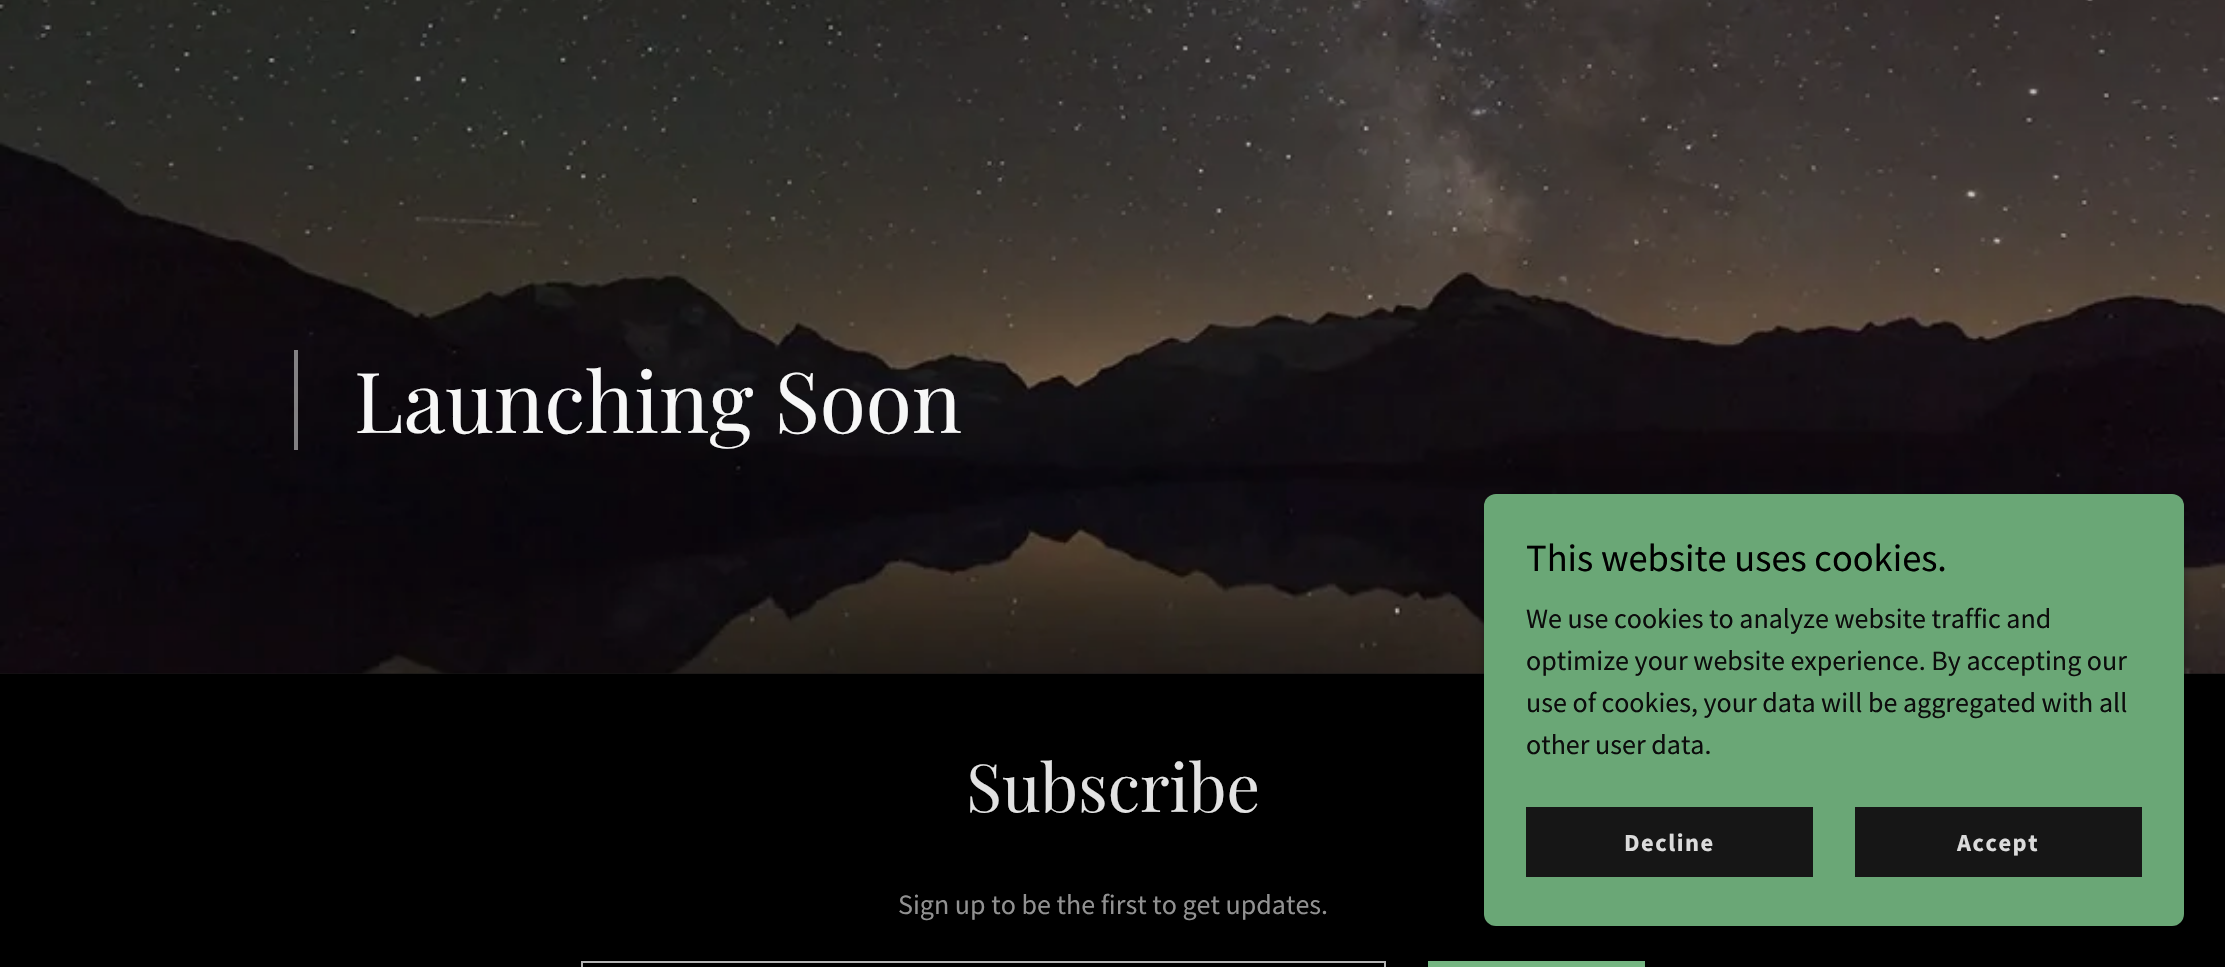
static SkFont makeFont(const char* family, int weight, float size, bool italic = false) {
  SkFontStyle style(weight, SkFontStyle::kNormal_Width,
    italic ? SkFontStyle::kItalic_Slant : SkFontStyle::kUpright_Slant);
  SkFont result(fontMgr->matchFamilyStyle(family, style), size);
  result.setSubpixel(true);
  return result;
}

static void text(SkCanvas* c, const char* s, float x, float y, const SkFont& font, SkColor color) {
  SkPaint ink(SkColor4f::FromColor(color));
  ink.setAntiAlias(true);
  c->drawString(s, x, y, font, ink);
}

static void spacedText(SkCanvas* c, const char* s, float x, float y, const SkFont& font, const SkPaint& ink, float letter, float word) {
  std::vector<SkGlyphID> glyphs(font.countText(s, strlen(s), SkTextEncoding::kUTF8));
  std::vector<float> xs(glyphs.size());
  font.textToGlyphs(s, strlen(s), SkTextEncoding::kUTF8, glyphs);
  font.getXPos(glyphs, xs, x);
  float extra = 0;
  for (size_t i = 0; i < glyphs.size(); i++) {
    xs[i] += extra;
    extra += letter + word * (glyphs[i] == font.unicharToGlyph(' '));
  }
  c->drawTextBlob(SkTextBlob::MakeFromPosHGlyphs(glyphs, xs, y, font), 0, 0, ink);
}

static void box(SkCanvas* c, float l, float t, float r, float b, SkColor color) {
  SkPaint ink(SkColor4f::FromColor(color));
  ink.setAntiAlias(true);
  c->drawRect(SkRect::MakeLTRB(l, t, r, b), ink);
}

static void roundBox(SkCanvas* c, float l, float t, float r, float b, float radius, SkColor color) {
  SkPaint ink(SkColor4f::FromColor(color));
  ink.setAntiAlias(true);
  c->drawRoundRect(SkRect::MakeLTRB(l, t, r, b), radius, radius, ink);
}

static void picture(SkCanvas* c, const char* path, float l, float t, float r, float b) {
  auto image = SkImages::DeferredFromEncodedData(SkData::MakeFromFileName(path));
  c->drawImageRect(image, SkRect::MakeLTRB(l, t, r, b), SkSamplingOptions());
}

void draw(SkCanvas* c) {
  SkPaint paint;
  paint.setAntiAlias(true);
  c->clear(0xff000000);
  box(c, 0, 673, 2225, 674, 0xff161616);
  picture(c, "img_01.png", 0, 0, 2225, 674);
  box(c, 294, 350, 298, 450, 0x80f7f7f7);
  SkFont face1 = makeFont("Playfair Display", 400, 84);
  text(c, "Launching Soon", 354, 433, face1, 0xfff7f7f7);
  SkFont face2 = makeFont("Playfair Display", 400, 66.5f);
  text(c, "Subscribe", 966, 812, face2, 0xffe2e2e2);
  SkFont face3 = makeFont("Source Sans Pro", 400, 28);
  text(c, "Sign up to be the first to get updates.", 898, 914, face3, 0xff919191);
  paint.setStyle(SkPaint::kStroke_Style);
  paint.setStrokeWidth(2);
  paint.setColor(0xffb3b3b3);
  c->drawRect(SkRect::MakeLTRB(582, 962, 1385, 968), paint);
  box(c, 1428, 961, 1645, 967, 0xff74b581);
  paint.setStyle(SkPaint::kFill_Style);
  paint.setColor(0x4d000000);
  paint.setMaskFilter(SkMaskFilter::MakeBlur(kNormal_SkBlurStyle, 5));
  c->drawRoundRect(SkRect::MakeLTRB(1484, 497, 2184, 929), 12, 12, paint);
  paint.setMaskFilter(nullptr);
  roundBox(c, 1484, 494, 2184, 926, 12, 0xff6aa776);
  SkFont face4 = makeFont("Source Sans Pro", 400, 38.5f);
  text(c, "This website uses cookies.", 1526, 571, face4, 0xff000000);
  text(c, "We use cookies to analyze website traffic and", 1526, 628, face3, 0xff0c0c0c);
  text(c, "optimize your website experience. By accepting our", 1526, 670, face3, 0xff0c0c0c);
  text(c, "use of cookies, your data will be aggregated with all", 1526, 712, face3, 0xff0c0c0c);
  text(c, "other user data.", 1526, 754, face3, 0xff0c0c0c);
  box(c, 1526, 807, 1813, 877, 0xff161616);
  SkFont face5 = makeFont("Source Sans Pro", 700, 24.5f);
  paint.setColor(0xffdbdbdb);
  spacedText(c, "Decline", 1624, 851, face5, paint, 1.5f, 0);
  box(c, 1855, 807, 2142, 877, 0xff161616);
  spacedText(c, "Accept", 1957, 851, face5, paint, 1.5f, 0);
}
